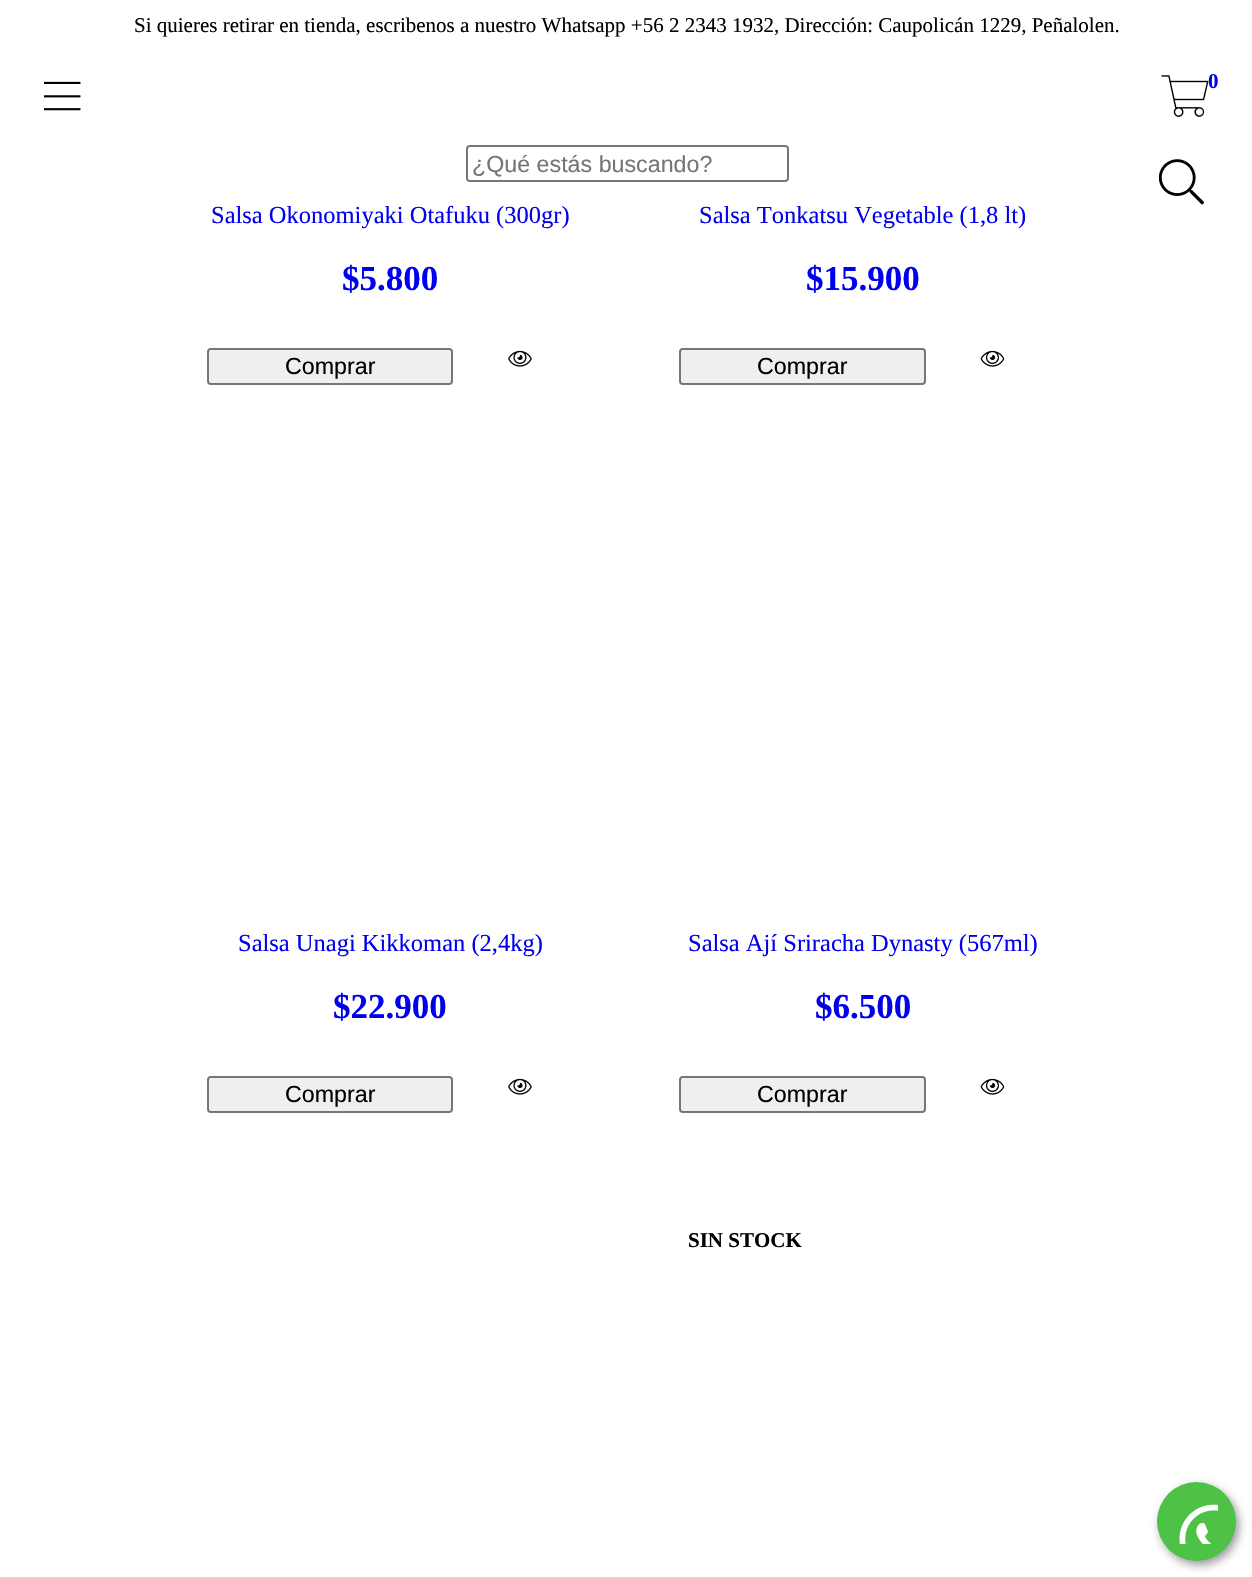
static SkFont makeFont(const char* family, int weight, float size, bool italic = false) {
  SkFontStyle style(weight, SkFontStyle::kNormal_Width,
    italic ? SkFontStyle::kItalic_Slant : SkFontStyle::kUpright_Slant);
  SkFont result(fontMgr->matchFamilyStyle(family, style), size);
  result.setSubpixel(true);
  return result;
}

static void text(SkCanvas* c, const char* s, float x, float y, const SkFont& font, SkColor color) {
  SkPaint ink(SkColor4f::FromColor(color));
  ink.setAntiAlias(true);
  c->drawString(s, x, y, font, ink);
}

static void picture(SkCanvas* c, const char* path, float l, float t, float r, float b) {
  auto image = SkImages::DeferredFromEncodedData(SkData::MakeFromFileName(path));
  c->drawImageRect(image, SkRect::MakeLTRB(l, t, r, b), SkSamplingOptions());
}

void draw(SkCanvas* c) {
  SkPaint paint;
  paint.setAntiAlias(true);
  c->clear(0xffffffff);
  SkFont face1 = makeFont("Liberation Serif", 400, 21);
  text(c, "Si quieres retirar en tienda, escribenos a nuestro Whatsapp +56 2 2343 1932, Dirección: Caupolicán 1229, Peñalolen.", 134, 32, face1, 0xff000000);
  picture(c, "img_01.png", 44, 81, 81, 111);
  picture(c, "img_02.png", 1161, 75, 1209, 117);
  SkFont face2 = makeFont("Liberation Serif", 700, 21);
  text(c, "0", 1208, 88, face2, 0xff0000ee);
  paint.setStyle(SkPaint::kStroke_Style);
  paint.setStrokeWidth(2);
  paint.setColor(0xff767676);
  c->drawRoundRect(SkRect::MakeLTRB(467, 146, 788, 181), 3, 3, paint);
  SkFont face3 = makeFont("Liberation Sans", 400, 23.25f);
  text(c, "¿Qué estás buscando?", 472, 172, face3, 0xff757575);
  picture(c, "img_03.png", 1159, 159, 1204, 205);
  SkFont face4 = makeFont("Liberation Serif", 400, 24.5f);
  text(c, "Salsa Okonomiyaki Otafuku (300gr)", 211, 223, face4, 0xff0000ee);
  SkFont face5 = makeFont("Liberation Serif", 700, 35);
  text(c, "$5.800", 342, 290, face5, 0xff0000ee);
  paint.setStyle(SkPaint::kFill_Style);
  paint.setColor(0xffefefef);
  c->drawRoundRect(SkRect::MakeLTRB(208, 349, 452, 384), 3, 3, paint);
  paint.setStyle(SkPaint::kStroke_Style);
  paint.setColor(0xff767676);
  c->drawRoundRect(SkRect::MakeLTRB(208, 349, 452, 384), 3, 3, paint);
  text(c, "Comprar", 285, 374, face3, 0xff000000);
  picture(c, "img_04.png", 508, 350, 532, 367);
  text(c, "Salsa Tonkatsu Vegetable (1,8 lt)", 699, 223, face4, 0xff0000ee);
  text(c, "$15.900", 806, 290, face5, 0xff0000ee);
  paint.setStyle(SkPaint::kFill_Style);
  paint.setColor(0xffefefef);
  c->drawRoundRect(SkRect::MakeLTRB(680, 349, 925, 384), 3, 3, paint);
  paint.setStyle(SkPaint::kStroke_Style);
  paint.setColor(0xff767676);
  c->drawRoundRect(SkRect::MakeLTRB(680, 349, 925, 384), 3, 3, paint);
  text(c, "Comprar", 757, 374, face3, 0xff000000);
  picture(c, "img_05.png", 980, 350, 1005, 367);
  text(c, "Salsa Unagi Kikkoman (2,4kg)", 238, 951, face4, 0xff0000ee);
  text(c, "$22.900", 333, 1018, face5, 0xff0000ee);
  paint.setStyle(SkPaint::kFill_Style);
  paint.setColor(0xffefefef);
  c->drawRoundRect(SkRect::MakeLTRB(208, 1077, 452, 1112), 3, 3, paint);
  paint.setStyle(SkPaint::kStroke_Style);
  paint.setColor(0xff767676);
  c->drawRoundRect(SkRect::MakeLTRB(208, 1077, 452, 1112), 3, 3, paint);
  text(c, "Comprar", 285, 1102, face3, 0xff000000);
  picture(c, "img_04.png", 508, 1078, 532, 1095);
  text(c, "Salsa Ají Sriracha Dynasty (567ml)", 688, 951, face4, 0xff0000ee);
  text(c, "$6.500", 815, 1018, face5, 0xff0000ee);
  paint.setStyle(SkPaint::kFill_Style);
  paint.setColor(0xffefefef);
  c->drawRoundRect(SkRect::MakeLTRB(680, 1077, 925, 1112), 3, 3, paint);
  paint.setStyle(SkPaint::kStroke_Style);
  paint.setColor(0xff767676);
  c->drawRoundRect(SkRect::MakeLTRB(680, 1077, 925, 1112), 3, 3, paint);
  text(c, "Comprar", 757, 1102, face3, 0xff000000);
  picture(c, "img_05.png", 980, 1078, 1005, 1095);
  text(c, "SIN STOCK", 688, 1247, face2, 0xff000000);
  paint.setStyle(SkPaint::kFill_Style);
  paint.setColor(0x66000000);
  paint.setMaskFilter(SkMaskFilter::MakeBlur(kNormal_SkBlurStyle, 5));
  c->drawRoundRect(SkRect::MakeLTRB(1160, 1486, 1239, 1565), 39.5f, 39.5f, paint);
  paint.setMaskFilter(nullptr);
  paint.setColor(0xff4dc247);
  c->drawCircle(1196.5f, 1521.5f, 39.5f, paint);
  picture(c, "img_06.png", 1179, 1504, 1218, 1544);
}
